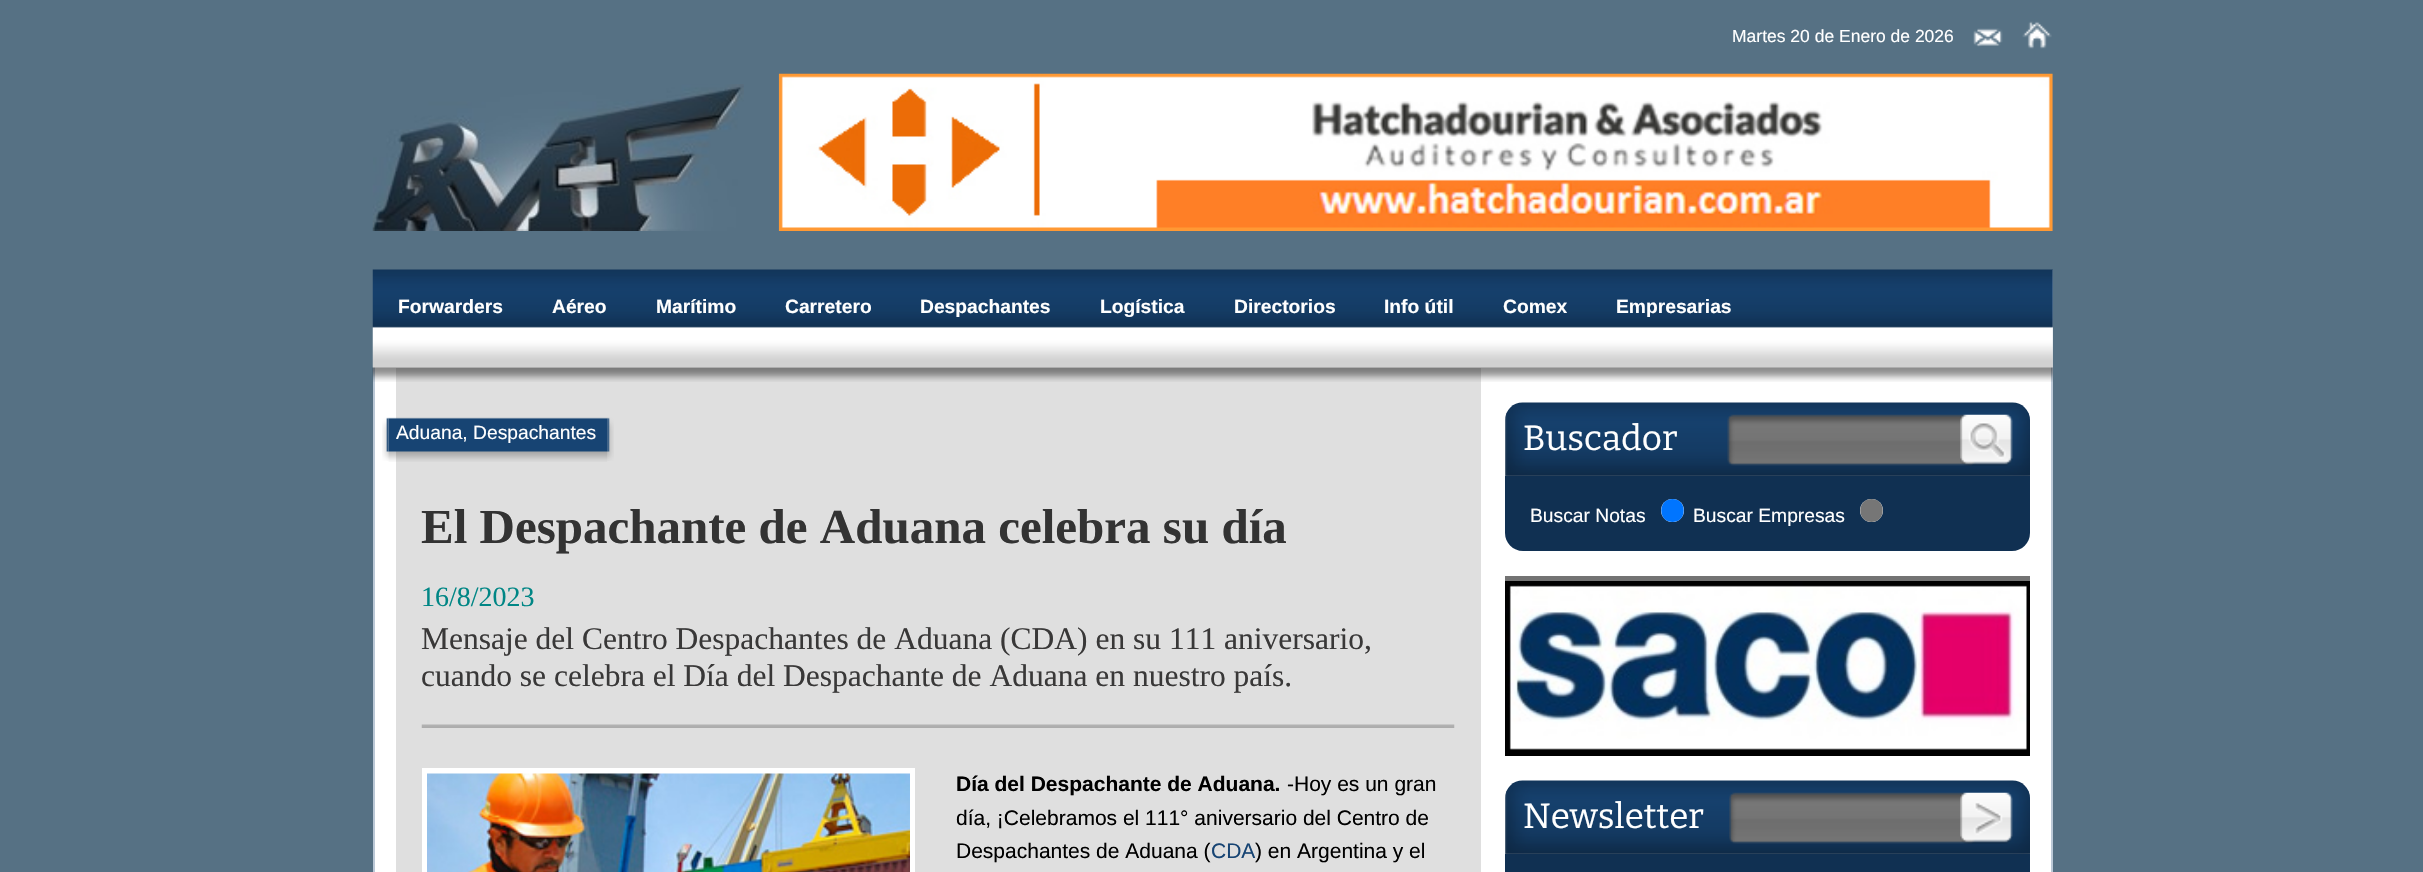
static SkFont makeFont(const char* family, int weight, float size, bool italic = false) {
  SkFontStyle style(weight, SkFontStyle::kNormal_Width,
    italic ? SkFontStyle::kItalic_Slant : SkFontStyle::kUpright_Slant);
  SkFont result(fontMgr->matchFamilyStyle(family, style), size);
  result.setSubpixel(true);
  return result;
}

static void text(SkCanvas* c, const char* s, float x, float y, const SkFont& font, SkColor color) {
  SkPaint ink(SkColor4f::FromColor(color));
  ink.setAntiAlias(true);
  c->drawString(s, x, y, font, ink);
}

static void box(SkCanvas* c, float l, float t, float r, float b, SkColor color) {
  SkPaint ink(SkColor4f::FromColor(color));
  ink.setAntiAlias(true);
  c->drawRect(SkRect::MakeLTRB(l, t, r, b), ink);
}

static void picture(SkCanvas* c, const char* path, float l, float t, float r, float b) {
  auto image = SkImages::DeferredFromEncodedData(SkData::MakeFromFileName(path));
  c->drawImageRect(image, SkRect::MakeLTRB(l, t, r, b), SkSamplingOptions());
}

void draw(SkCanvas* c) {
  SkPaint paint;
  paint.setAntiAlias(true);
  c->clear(0xff567184);
  SkFont face1 = makeFont("Liberation Sans", 400, 17.5f);
  text(c, "Martes 20 de Enero de 2026", 1732, 42, face1, 0xffffffff);
  picture(c, "img_01.png", 1973, 28, 2003, 47);
  picture(c, "img_02.png", 2022, 21, 2052, 49);
  picture(c, "img_03.png", 372, 84, 744, 231);
  picture(c, "img_04.png", 778, 73, 2053, 231);
  box(c, 375, 367, 2051, 872, 0xffffffff);
  box(c, 2051, 270, 2053, 872, 0xffbbc8d6);
  box(c, 373, 367, 375, 872, 0xffbbc8d6);
  box(c, 396, 368, 1481, 872, 0xffdfdfdf);
  picture(c, "img_05.png", 372, 269, 2053, 382);
  SkFont face2 = makeFont("Liberation Sans", 700, 19.25f);
  text(c, "Forwarders", 398, 313, face2, 0xffffffff);
  text(c, "Aéreo", 552, 313, face2, 0xffffffff);
  text(c, "Marítimo", 656, 313, face2, 0xffffffff);
  text(c, "Carretero", 785, 313, face2, 0xffffffff);
  text(c, "Despachantes", 920, 313, face2, 0xffffffff);
  text(c, "Logística", 1100, 313, face2, 0xffffffff);
  text(c, "Directorios", 1234, 313, face2, 0xffffffff);
  text(c, "Info útil", 1384, 313, face2, 0xffffffff);
  text(c, "Comex", 1503, 313, face2, 0xffffffff);
  text(c, "Empresarias", 1616, 313, face2, 0xffffffff);
  picture(c, "img_06.png", 382, 417, 389, 461);
  picture(c, "img_07.png", 388, 417, 608, 462);
  SkFont face3 = makeFont("Liberation Sans", 400, 19.25f);
  text(c, "Aduana, Despachantes", 396, 439, face3, 0xffffffff);
  picture(c, "img_08.png", 607, 417, 614, 461);
  SkFont face4 = makeFont("Liberation Serif", 700, 49);
  text(c, "El Despachante de Aduana celebra su día", 421, 543, face4, 0xff333333);
  SkFont face5 = makeFont("Liberation Serif", 400, 28);
  text(c, "16/8/2023", 421, 606, face5, 0xff008685);
  SkFont face6 = makeFont("Liberation Serif", 400, 31.5f);
  text(c, "Mensaje del Centro Despachantes de Aduana (CDA) en su 111 aniversario,", 421, 649, face6, 0xff393838);
  text(c, "cuando se celebra el Día del Despachante de Aduana en nuestro país.", 421, 686, face6, 0xff393838);
  picture(c, "img_09.png", 421, 724, 1455, 728);
  box(c, 422, 768, 915, 872, 0xffffffff);
  picture(c, "img_10.png", 427, 773, 910, 872);
  SkFont face7 = makeFont("Liberation Sans", 700, 21);
  text(c, "Día del Despachante de Aduana.", 956, 791, face7, 0xff000000);
  SkFont face8 = makeFont("Liberation Sans", 400, 21);
  text(c, "-Hoy es un gran", 1287, 791, face8, 0xff000000);
  text(c, "día, ¡Celebramos el 111° aniversario del Centro de", 956, 825, face8, 0xff000000);
  text(c, "Despachantes de Aduana (", 956, 858, face8, 0xff000000);
  text(c, "CDA", 1211, 858, face8, 0xff174473);
  text(c, ") en Argentina y el", 1255, 858, face8, 0xff000000);
  picture(c, "img_11.png", 1505, 402, 2030, 476);
  SkFont face9 = makeFont("Bitter", 400, 35);
  text(c, "Buscador", 1523, 450, face9, 0xffffffff);
  picture(c, "img_12.png", 1727, 414, 1960, 466);
  picture(c, "img_13.png", 1960, 414, 2013, 466);
  paint.setColor(0xff103052);
  c->drawPath(SkPathBuilder().moveTo(1505, 476).lineTo(2030, 476).lineTo(2030, 533).cubicTo(2030, 543, 2022, 551, 2012, 551).lineTo(1523, 551).cubicTo(1513, 551, 1505, 543, 1505, 533).close().detach(), paint);
  text(c, "Buscar Notas", 1530, 522, face3, 0xffffffff);
  paint.setColor(0xffffffff);
  c->drawCircle(1672.5f, 510.5f, 11.5f, paint);
  paint.setColor(0xff0075ff);
  c->drawPath(SkPathBuilder().moveTo(1672.5f, 499).cubicTo(1687.5f, 499, 1687.5f, 522, 1672.5f, 522).cubicTo(1657.5f, 522, 1657.5f, 499, 1672.5f, 499).close().detach(), paint);
  text(c, "Buscar Empresas", 1693, 522, face3, 0xffffffff);
  paint.setColor(0xffffffff);
  c->drawCircle(1871.5f, 510.5f, 11.5f, paint);
  paint.setColor(0xff767676);
  c->drawPath(SkPathBuilder().moveTo(1871.5f, 499).cubicTo(1886.5f, 499, 1886.5f, 522, 1871.5f, 522).cubicTo(1856.5f, 522, 1856.5f, 499, 1871.5f, 499).close().detach(), paint);
  box(c, 1505, 576, 2030, 581, 0xff737373);
  picture(c, "img_14.png", 1505, 581, 2030, 756);
  picture(c, "img_11.png", 1505, 780, 2030, 854);
  text(c, "Newsletter", 1523, 828, face9, 0xffffffff);
  picture(c, "img_15.png", 1729, 792, 1960, 844);
  picture(c, "img_16.png", 1960, 792, 2013, 844);
  box(c, 1505, 854, 2030, 872, 0xff103052);
}
